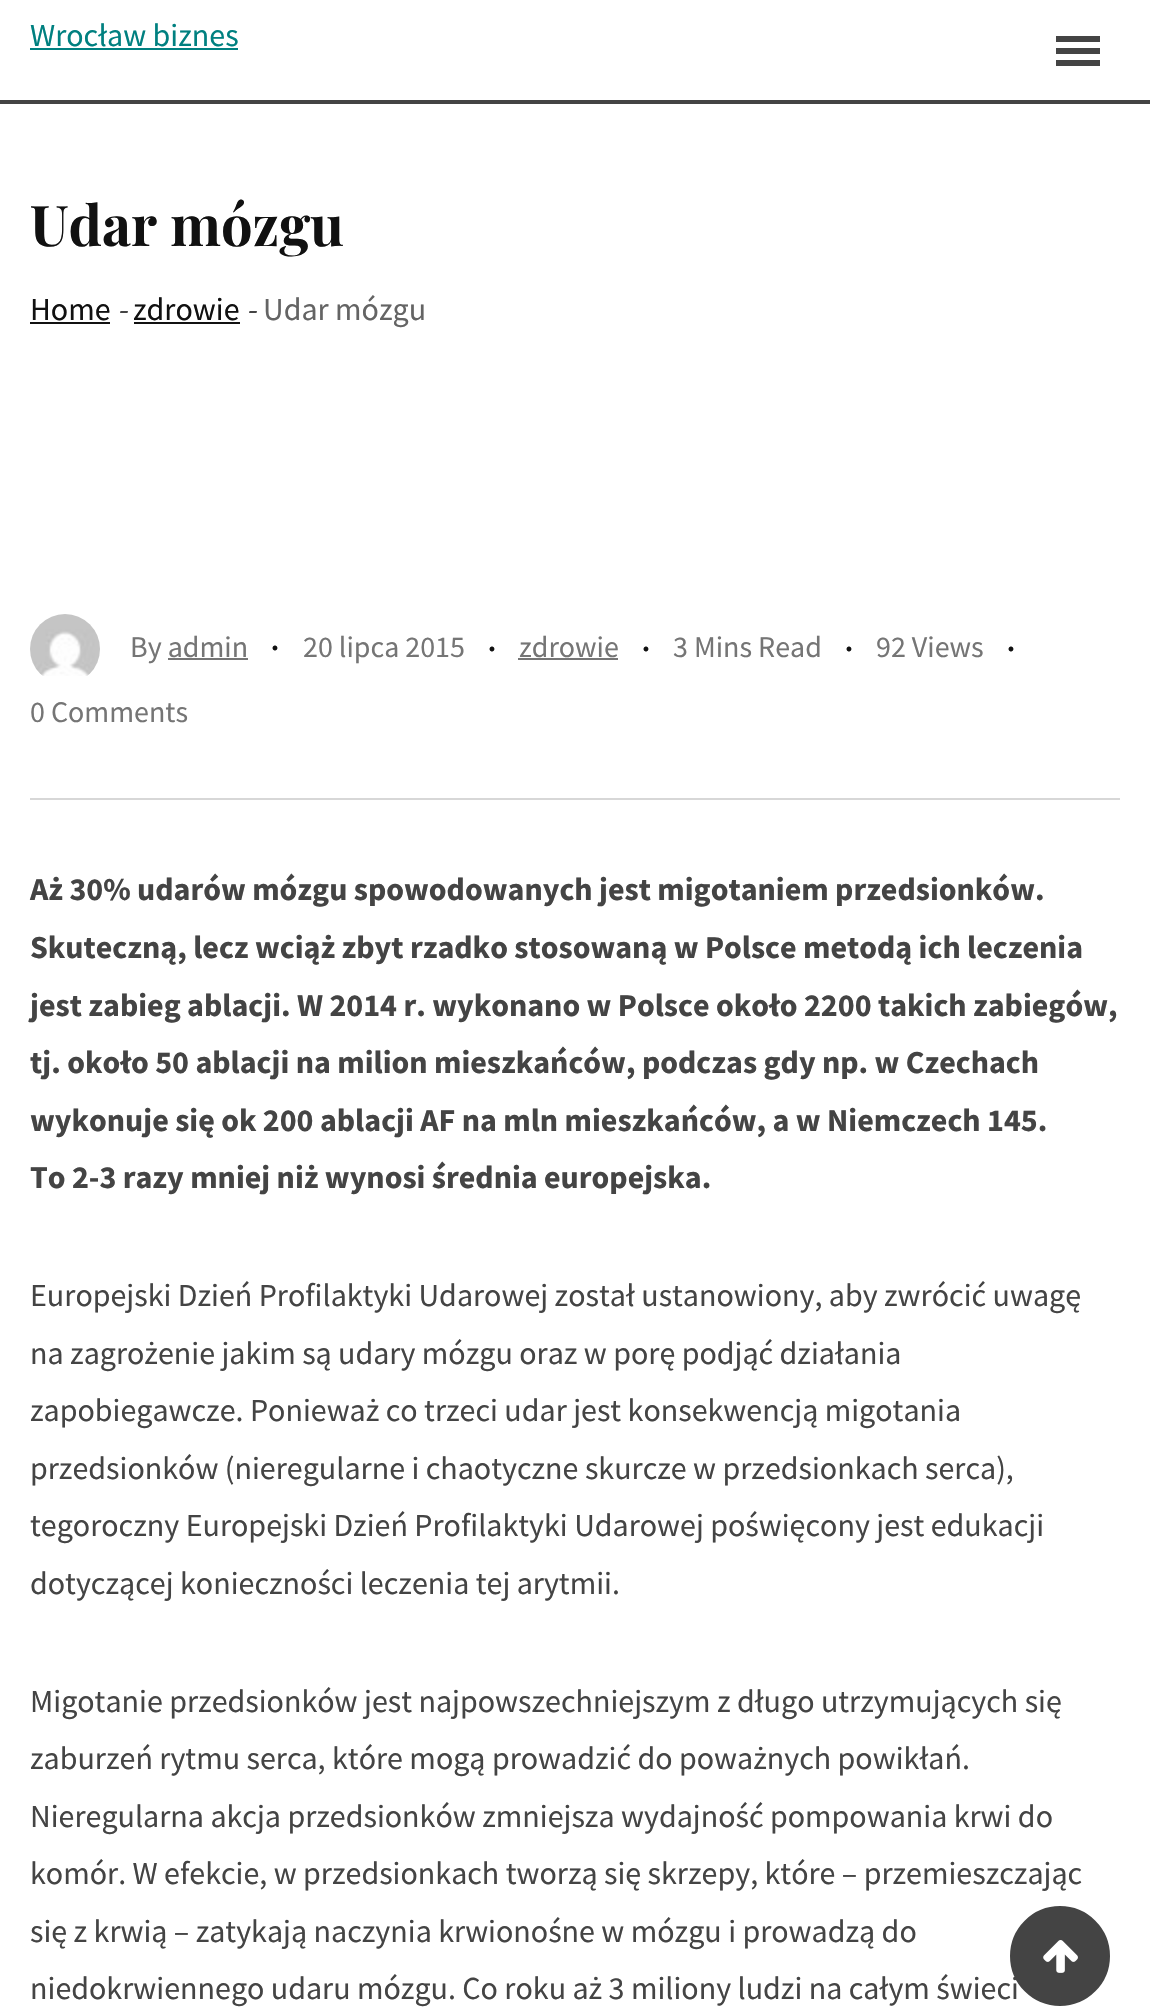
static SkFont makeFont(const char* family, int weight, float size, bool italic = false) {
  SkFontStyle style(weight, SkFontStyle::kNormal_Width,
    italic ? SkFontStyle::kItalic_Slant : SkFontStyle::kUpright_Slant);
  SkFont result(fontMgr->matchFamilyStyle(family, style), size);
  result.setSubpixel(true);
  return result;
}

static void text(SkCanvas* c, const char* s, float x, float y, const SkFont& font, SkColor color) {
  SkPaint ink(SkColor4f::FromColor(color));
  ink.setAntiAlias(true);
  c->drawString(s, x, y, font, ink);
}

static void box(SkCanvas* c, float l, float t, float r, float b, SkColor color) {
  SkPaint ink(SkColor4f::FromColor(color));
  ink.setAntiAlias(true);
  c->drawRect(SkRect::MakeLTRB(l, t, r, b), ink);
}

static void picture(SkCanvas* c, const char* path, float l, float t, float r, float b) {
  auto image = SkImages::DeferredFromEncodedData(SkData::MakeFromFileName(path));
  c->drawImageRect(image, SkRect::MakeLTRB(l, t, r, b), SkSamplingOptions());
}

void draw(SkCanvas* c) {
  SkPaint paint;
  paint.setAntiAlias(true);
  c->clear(0xffffffff);
  box(c, 0, 100, 1150, 104, 0xff444444);
  SkFont face1 = makeFont("Source Sans Pro", 400, 32);
  text(c, "Wrocław biznes", 30, 46, face1, 0xff008080);
  box(c, 30, 48, 238, 50, 0xff008080);
  box(c, 1056, 36, 1100, 42, 0xff444444);
  box(c, 1056, 48, 1100, 54, 0xff444444);
  box(c, 1056, 60, 1100, 66, 0xff444444);
  SkFont face2 = makeFont("Playfair Display", 700, 56);
  text(c, "Udar mózgu", 30, 246, face2, 0xff111111);
  text(c, "Home", 30, 320, face1, 0xff111111);
  box(c, 30, 322, 110, 324, 0xff111111);
  SkFont face3 = makeFont("Source Sans Pro", 400, 32, true);
  text(c, "-", 117, 320, face3, 0xff444444);
  text(c, "zdrowie", 133, 320, face1, 0xff111111);
  box(c, 134, 322, 240, 324, 0xff111111);
  text(c, "-", 246, 320, face3, 0xff444444);
  text(c, "Udar mózgu", 263, 320, face1, 0xff646464);
  picture(c, "img_01.png", 30, 614, 100, 676);
  SkFont face4 = makeFont("Source Sans Pro", 400, 30);
  text(c, "By admin", 130, 657, face4, 0xff757575);
  SkFont face5 = makeFont("Source Sans Pro", 400, 40);
  text(c, ".", 270, 650, face5, 0xff111111);
  box(c, 168, 658, 248, 660, 0xff757575);
  text(c, "20 lipca 2015", 303, 657, face4, 0xff757575);
  text(c, ".", 487, 651, face5, 0xff111111);
  text(c, "zdrowie", 519, 657, face4, 0xff757575);
  box(c, 518, 658, 618, 660, 0xff757575);
  text(c, ".", 641, 651, face5, 0xff111111);
  text(c, "3 Mins Read", 673, 657, face4, 0xff757575);
  text(c, ".", 844, 651, face5, 0xff111111);
  text(c, "92 Views", 876, 657, face4, 0xff757575);
  text(c, ".", 1006, 651, face5, 0xff111111);
  text(c, "0 Comments", 30, 722, face4, 0xff757575);
  box(c, 30, 798, 1120, 800, 0xffd7d7d7);
  SkFont face6 = makeFont("Source Sans Pro", 700, 32);
  text(c, "Aż 30% udarów mózgu spowodowanych jest migotaniem przedsionków.", 30, 900, face6, 0xff444444);
  text(c, "Skuteczną, lecz wciąż zbyt rzadko stosowaną w Polsce metodą ich leczenia", 30, 958, face6, 0xff444444);
  text(c, "jest zabieg ablacji. W 2014 r. wykonano w Polsce około 2200 takich zabiegów,", 30, 1016, face6, 0xff444444);
  text(c, "tj. około 50 ablacji na milion mieszkańców, podczas gdy np. w Czechach", 30, 1073, face6, 0xff444444);
  text(c, "wykonuje się ok 200 ablacji AF na mln mieszkańców, a w Niemczech 145.", 30, 1131, face6, 0xff444444);
  text(c, "To 2-3 razy mniej niż wynosi średnia europejska.", 30, 1188, face6, 0xff444444);
  text(c, "Europejski Dzień Profilaktyki Udarowej został ustanowiony, aby zwrócić uwagę", 30, 1306, face1, 0xff444444);
  text(c, "na zagrożenie jakim są udary mózgu oraz w porę podjąć działania", 30, 1364, face1, 0xff444444);
  text(c, "zapobiegawcze. Ponieważ co trzeci udar jest konsekwencją migotania", 30, 1421, face1, 0xff444444);
  text(c, "przedsionków (nieregularne i chaotyczne skurcze w przedsionkach serca),", 30, 1479, face1, 0xff444444);
  text(c, "tegoroczny Europejski Dzień Profilaktyki Udarowej poświęcony jest edukacji", 30, 1536, face1, 0xff444444);
  text(c, "dotyczącej konieczności leczenia tej arytmii.", 30, 1594, face1, 0xff444444);
  text(c, "Migotanie przedsionków jest najpowszechniejszym z długo utrzymujących się", 30, 1712, face1, 0xff444444);
  text(c, "zaburzeń rytmu serca, które mogą prowadzić do poważnych powikłań.", 30, 1769, face1, 0xff444444);
  text(c, "Nieregularna akcja przedsionków zmniejsza wydajność pompowania krwi do", 30, 1827, face1, 0xff444444);
  text(c, "komór. W efekcie, w przedsionkach tworzą się skrzepy, które – przemieszczając", 30, 1884, face1, 0xff444444);
  text(c, "się z krwią – zatykają naczynia krwionośne w mózgu i prowadzą do", 30, 1942, face1, 0xff444444);
  text(c, "niedokrwiennego udaru mózgu. Co roku aż 3 miliony ludzi na całym świeci", 30, 1999, face1, 0xff444444);
  paint.setColor(0xff444444);
  c->drawCircle(1060, 1956, 48, paint);
  paint.setStyle(SkPaint::kStroke_Style);
  paint.setStrokeWidth(4);
  c->drawCircle(1060, 1956, 48, paint);
  picture(c, "img_02.png", 1043, 1940, 1078, 1973);
}
